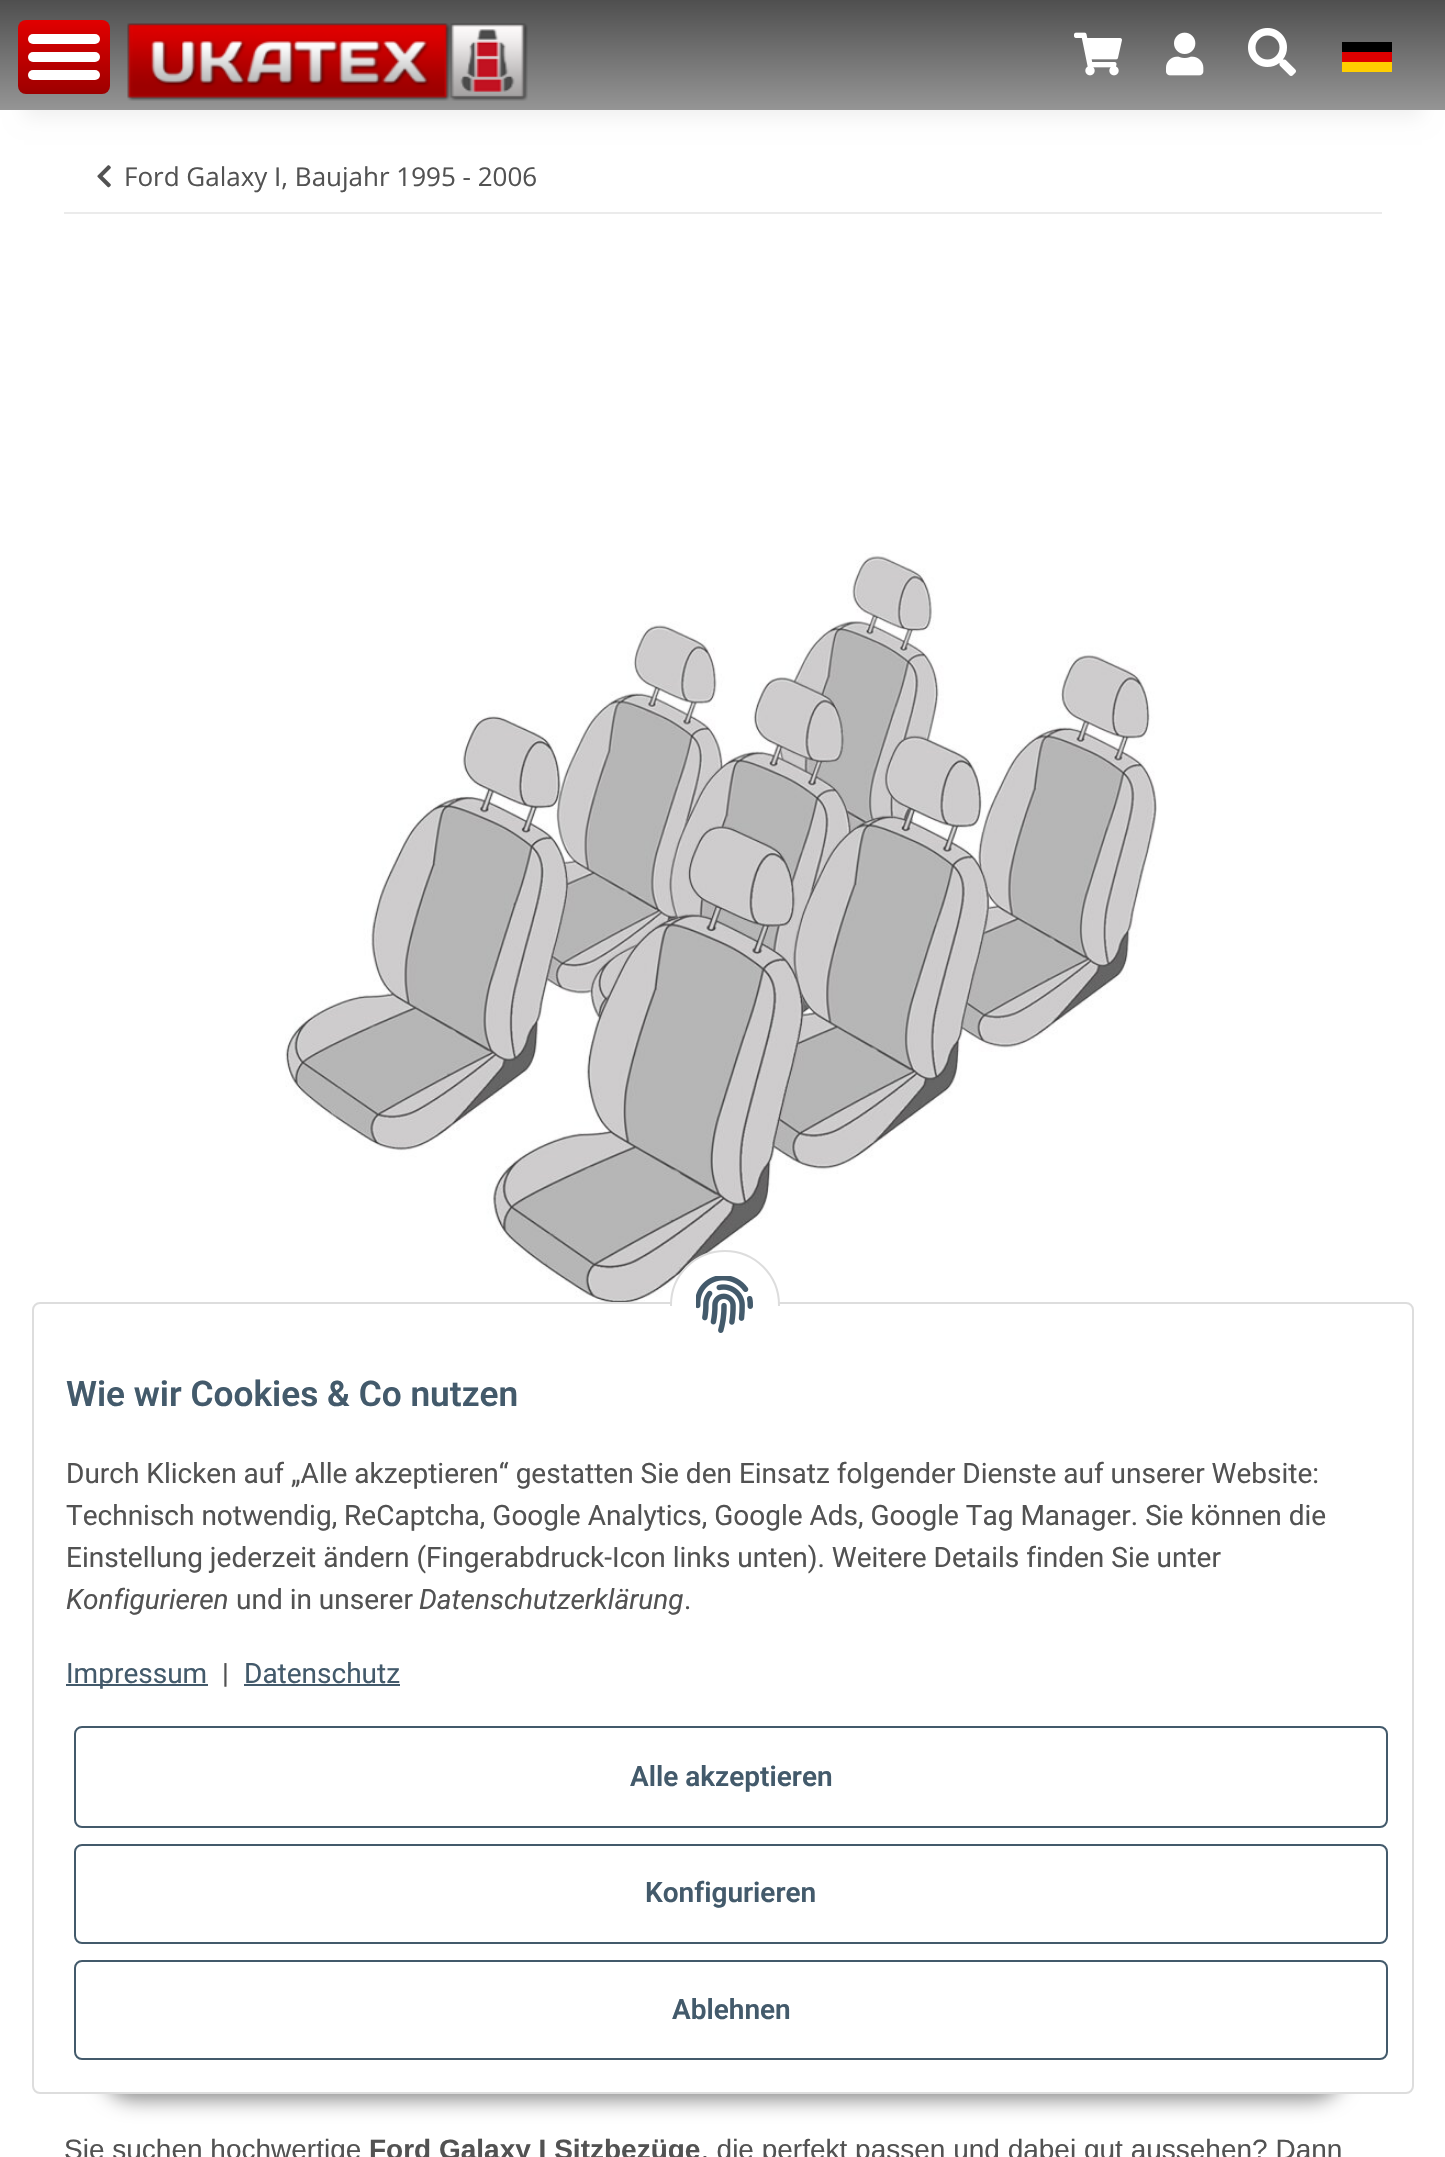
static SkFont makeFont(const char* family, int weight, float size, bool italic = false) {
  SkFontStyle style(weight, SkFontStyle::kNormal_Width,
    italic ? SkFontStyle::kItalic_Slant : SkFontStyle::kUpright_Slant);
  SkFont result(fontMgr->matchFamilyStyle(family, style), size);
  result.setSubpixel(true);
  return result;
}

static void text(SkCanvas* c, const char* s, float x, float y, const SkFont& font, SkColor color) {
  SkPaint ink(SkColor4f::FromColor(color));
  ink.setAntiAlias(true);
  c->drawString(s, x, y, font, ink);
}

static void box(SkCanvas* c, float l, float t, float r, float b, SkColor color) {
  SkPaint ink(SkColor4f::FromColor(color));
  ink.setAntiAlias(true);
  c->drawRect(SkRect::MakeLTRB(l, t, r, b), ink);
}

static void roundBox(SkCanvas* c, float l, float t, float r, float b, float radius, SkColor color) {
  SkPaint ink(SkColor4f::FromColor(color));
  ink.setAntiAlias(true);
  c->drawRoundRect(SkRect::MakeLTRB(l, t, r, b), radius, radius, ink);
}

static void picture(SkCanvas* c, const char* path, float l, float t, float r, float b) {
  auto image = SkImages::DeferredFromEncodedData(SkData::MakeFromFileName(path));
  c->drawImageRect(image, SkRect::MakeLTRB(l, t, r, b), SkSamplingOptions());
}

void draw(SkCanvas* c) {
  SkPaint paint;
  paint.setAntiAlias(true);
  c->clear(0xffffffff);
  paint.setColor(0x0f000000);
  paint.setMaskFilter(SkMaskFilter::MakeBlur(kNormal_SkBlurStyle, 9));
  c->drawRect(SkRect::MakeLTRB(24, 56, 1422, 118), paint);
  paint.setMaskFilter(nullptr);
  {
    const SkColor colors[] = {0xff4f4f4f, 0xff959595};
    const float stops[] = {0, 1};
    const SkPoint ends[] = {{723, 0}, {723, 110}};
    paint.setShader(SkGradientShader::MakeLinear(ends, colors, stops, 2, SkTileMode::kClamp));
    paint.setAlpha(255);
  }
  c->drawRect(SkRect::MakeLTRB(0, 0, 1445, 110), paint);
  {
    const SkColor colors[] = {0xffe10000, 0xff9d0000};
    const float stops[] = {0, 1};
    const SkPoint ends[] = {{64, 20}, {64, 94}};
    paint.setShader(SkGradientShader::MakeLinear(ends, colors, stops, 2, SkTileMode::kClamp));
    paint.setAlpha(255);
  }
  c->drawRoundRect(SkRect::MakeLTRB(18, 20, 110, 94), 8, 8, paint);
  roundBox(c, 28, 52, 100, 62, 5, 0xffffffff);
  roundBox(c, 28, 34, 100, 44, 5, 0xffffffff);
  roundBox(c, 28, 70, 100, 80, 5, 0xffffffff);
  picture(c, "img_01.png", 127, 23, 528, 101);
  picture(c, "img_02.png", 1074, 32, 1122, 76);
  picture(c, "img_03.png", 1166, 32, 1204, 76);
  picture(c, "img_04.png", 1248, 28, 1296, 76);
  box(c, 1342, 42, 1392, 52, 0xff000000);
  box(c, 1342, 52, 1392, 62, 0xffdd0000);
  box(c, 1342, 62, 1392, 72, 0xffffce00);
  box(c, 64, 212, 1382, 214, 0xffebebeb);
  picture(c, "img_05.png", 97, 165, 111, 188);
  SkFont face1 = makeFont("Open Sans", 400, 26);
  text(c, "Ford Galaxy I, Baujahr 1995 - 2006", 124, 186, face1, 0xff525252);
  picture(c, "img_06.png", 285, 553, 1157, 1302);
  SkFont face2 = makeFont("Liberation Sans", 400, 28);
  text(c, "Sie suchen hochwertige", 64, 2159, face2, 0xff525252);
  SkFont face3 = makeFont("Liberation Sans", 700, 28);
  text(c, "Ford Galaxy I Sitzbezüge", 369, 2159, face3, 0xff525252);
  text(c, ", die perfekt passen und dabei gut aussehen? Dann", 701, 2159, face2, 0xff525252);
  paint.setShader(nullptr);
  paint.setColor(0x73000000);
  paint.setMaskFilter(SkMaskFilter::MakeBlur(kNormal_SkBlurStyle, 10));
  c->drawRoundRect(SkRect::MakeLTRB(102, 2036, 1344, 2100), 32, 32, paint);
  paint.setMaskFilter(nullptr);
  paint.setColor(0xffffffff);
  c->drawRoundRect(SkRect::MakeLTRB(33, 1303, 1413, 2093), 7, 7, paint);
  paint.setStyle(SkPaint::kStroke_Style);
  paint.setStrokeWidth(2);
  paint.setColor(0xffdddddd);
  c->drawRoundRect(SkRect::MakeLTRB(33, 1303, 1413, 2093), 7, 7, paint);
  paint.setStyle(SkPaint::kFill_Style);
  paint.setColor(0xffffffff);
  c->drawCircle(725, 1305, 54, paint);
  paint.setStyle(SkPaint::kStroke_Style);
  paint.setColor(0xffdddddd);
  c->drawCircle(725, 1305, 54, paint);
  box(c, 670, 1306, 780, 1360, 0xffffffff);
  picture(c, "img_07.png", 696, 1276, 753, 1333);
  SkFont face4 = makeFont("Roboto", 600, 35.25f);
  text(c, "Wie wir Cookies & Co nutzen", 66, 1406, face4, 0xff435a6b);
  SkFont face5 = makeFont("Roboto", 400, 28);
  text(c, "Durch Klicken auf „Alle akzeptieren“ gestatten Sie den Einsatz folgender Dienste auf unserer Website:", 66, 1483, face5, 0xff525252);
  text(c, "Technisch notwendig, ReCaptcha, Google Analytics, Google Ads, Google Tag Manager. Sie können die", 66, 1525, face5, 0xff525252);
  text(c, "Einstellung jederzeit ändern (Fingerabdruck-Icon links unten). Weitere Details finden Sie unter", 66, 1567, face5, 0xff525252);
  SkFont face6 = makeFont("Roboto", 400, 28, true);
  text(c, "Konfigurieren", 66, 1609, face6, 0xff525252);
  text(c, "und in unserer", 236, 1609, face5, 0xff525252);
  text(c, "Datenschutzerklärung", 419, 1609, face6, 0xff525252);
  text(c, ".", 684, 1609, face5, 0xff525252);
  box(c, 66, 1684, 208, 1686, 0xff435a6b);
  text(c, "Impressum", 66, 1683, face5, 0xff435a6b);
  text(c, "|", 222, 1683, face5, 0xff525252);
  text(c, "Datenschutz", 244, 1683, face5, 0xff435a6b);
  box(c, 244, 1684, 400, 1686, 0xff435a6b);
  paint.setColor(0xff435a6b);
  c->drawRoundRect(SkRect::MakeLTRB(75, 1727, 1387, 1827), 7, 7, paint);
  SkFont face7 = makeFont("Roboto", 600, 28);
  text(c, "Alle akzeptieren", 630, 1786, face7, 0xff435a6b);
  c->drawRoundRect(SkRect::MakeLTRB(75, 1845, 1387, 1943), 7, 7, paint);
  text(c, "Konfigurieren", 645, 1902, face7, 0xff435a6b);
  c->drawRoundRect(SkRect::MakeLTRB(75, 1961, 1387, 2059), 7, 7, paint);
  text(c, "Ablehnen", 672, 2019, face7, 0xff435a6b);
}
